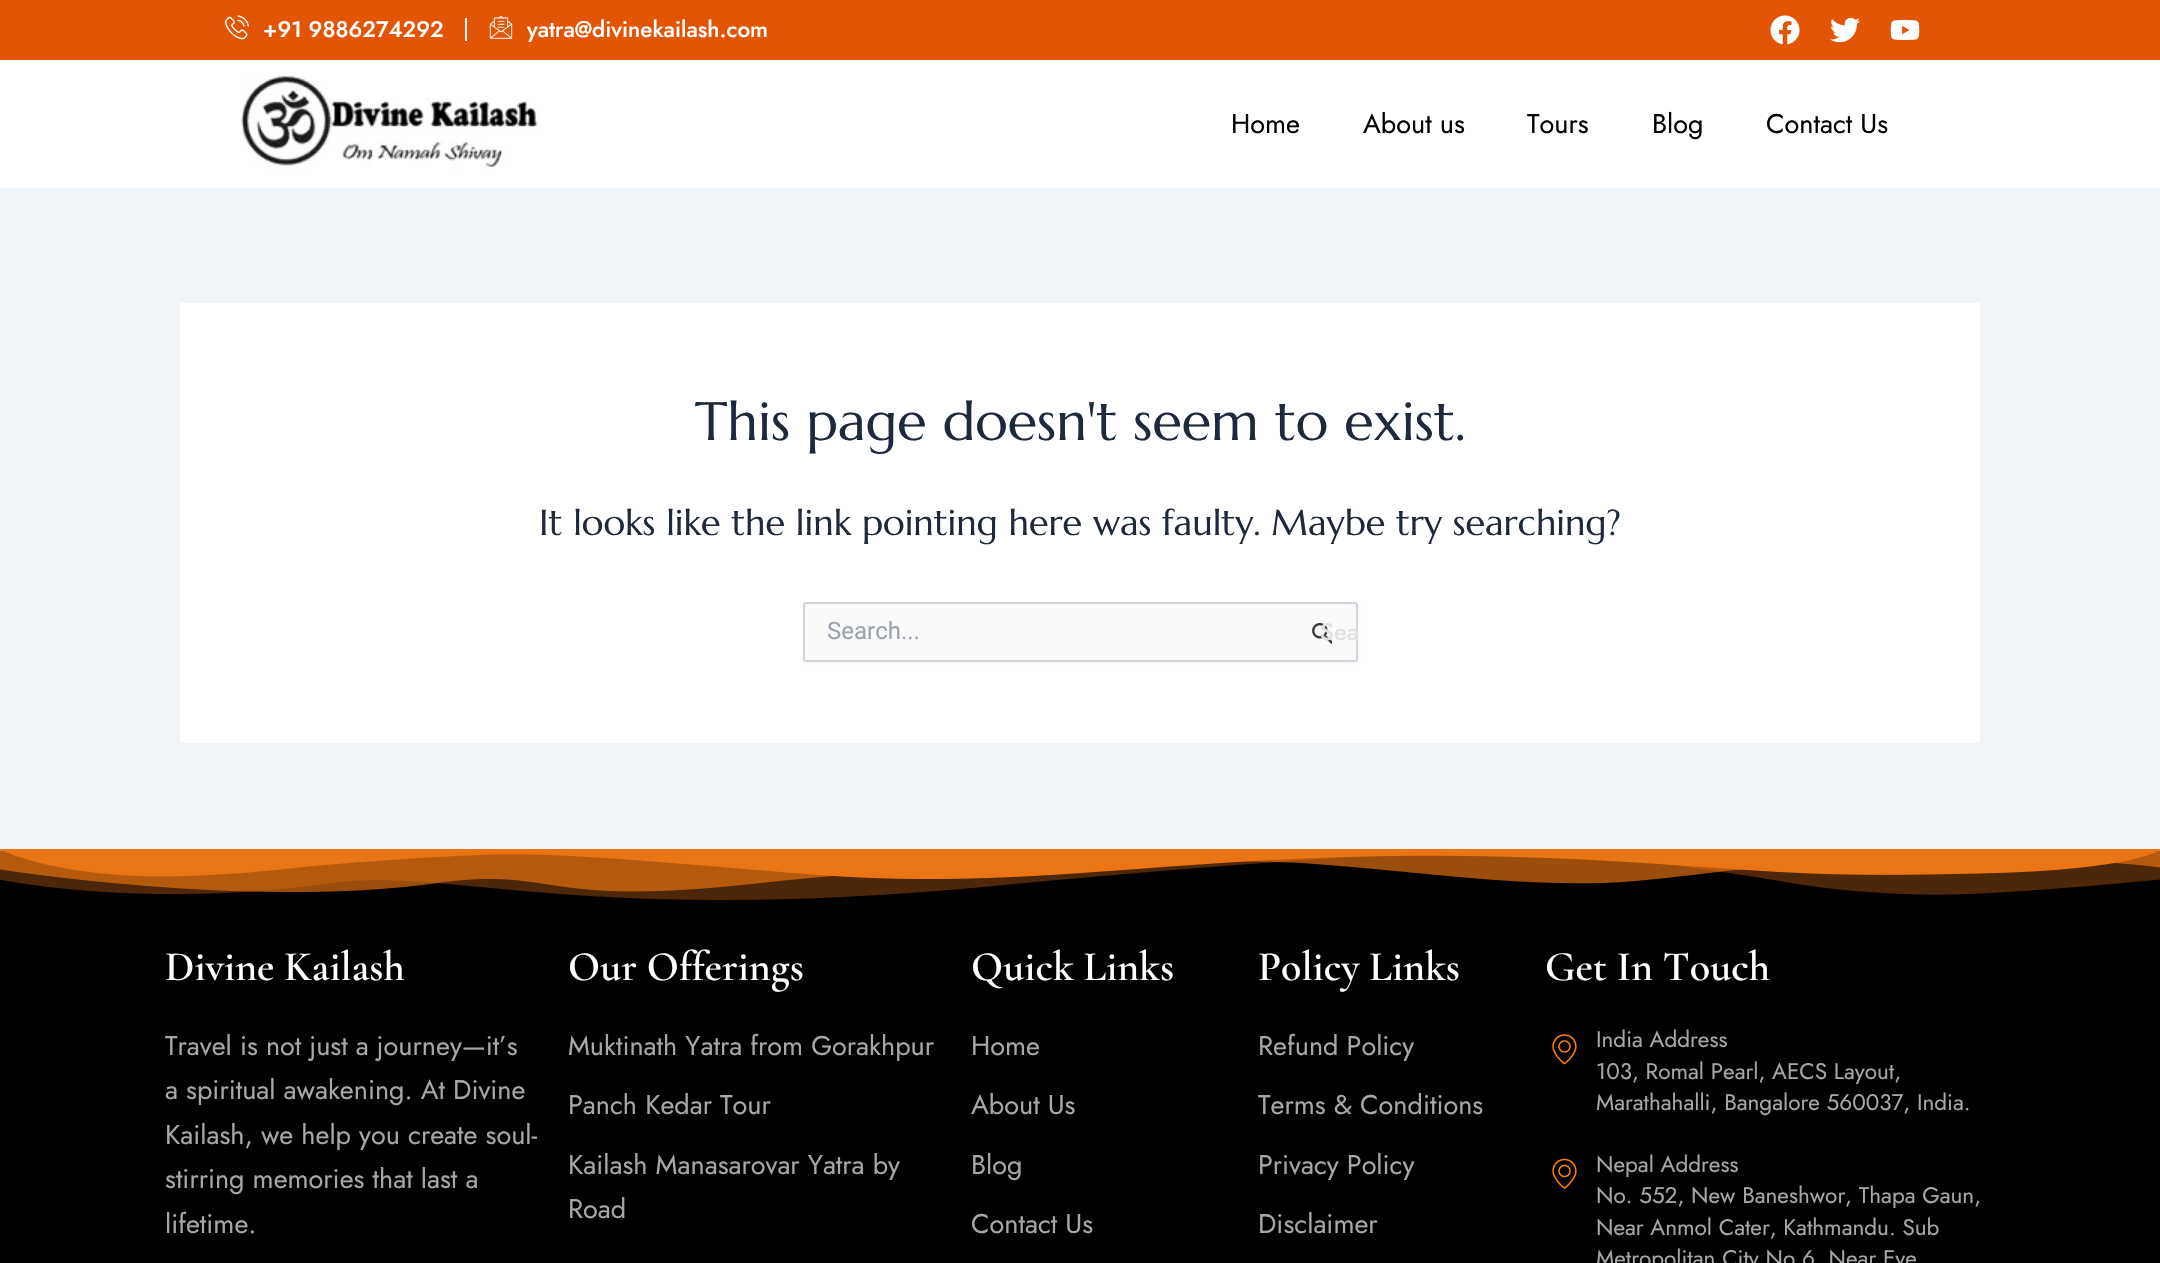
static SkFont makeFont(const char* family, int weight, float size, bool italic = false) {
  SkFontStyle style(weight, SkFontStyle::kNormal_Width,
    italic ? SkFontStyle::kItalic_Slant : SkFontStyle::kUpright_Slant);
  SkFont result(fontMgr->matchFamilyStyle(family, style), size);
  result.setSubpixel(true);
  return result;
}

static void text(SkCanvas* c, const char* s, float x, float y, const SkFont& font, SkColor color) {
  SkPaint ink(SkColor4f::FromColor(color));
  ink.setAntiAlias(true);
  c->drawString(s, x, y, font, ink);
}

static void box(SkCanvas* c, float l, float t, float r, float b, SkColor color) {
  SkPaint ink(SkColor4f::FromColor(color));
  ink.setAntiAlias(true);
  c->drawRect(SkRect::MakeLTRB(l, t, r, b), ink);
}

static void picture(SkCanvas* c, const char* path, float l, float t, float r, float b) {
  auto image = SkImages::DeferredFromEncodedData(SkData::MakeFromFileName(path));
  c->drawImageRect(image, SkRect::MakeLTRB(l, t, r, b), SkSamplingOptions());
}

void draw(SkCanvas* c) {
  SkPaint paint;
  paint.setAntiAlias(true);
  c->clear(0xfff0f5fa);
  box(c, 0, 0, 2160, 60, 0xffe25505);
  picture(c, "img_01.png", 225, 15, 249, 40);
  SkFont face1 = makeFont("Jost", 500, 22.5f);
  text(c, "+91 9886274292", 263, 37, face1, 0xffffffff);
  box(c, 465, 18, 467, 41, 0xffffffff);
  picture(c, "img_02.png", 489, 15, 513, 39);
  text(c, "yatra@divinekailash.com", 527, 37, face1, 0xffffffff);
  picture(c, "img_03.png", 1770, 15, 1800, 45);
  picture(c, "img_04.png", 1830, 17, 1860, 43);
  picture(c, "img_05.png", 1890, 20, 1920, 40);
  box(c, 0, 60, 2160, 188, 0xffffffff);
  picture(c, "img_06.png", 240, 75, 540, 169);
  SkFont face2 = makeFont("Jost", 400, 27);
  text(c, "Home", 1231, 133, face2, 0xff000000);
  text(c, "About us", 1363, 133, face2, 0xff000000);
  text(c, "Tours", 1527, 133, face2, 0xff000000);
  text(c, "Blog", 1652, 133, face2, 0xff000000);
  text(c, "Contact Us", 1766, 133, face2, 0xff000000);
  box(c, 180, 303, 1980, 743, 0xffffffff);
  SkFont face3 = makeFont("Marcellus", 400, 54);
  text(c, "This page doesn't seem to exist.", 695, 440, face3, 0xff1e293b);
  SkFont face4 = makeFont("Marcellus", 400, 36);
  text(c, "It looks like the link pointing here was faulty. Maybe try searching?", 539, 535, face4, 0xff1e293b);
  paint.setColor(0x0d000000);
  paint.setMaskFilter(SkMaskFilter::MakeBlur(kNormal_SkBlurStyle, 1.5f));
  c->drawRoundRect(SkRect::MakeLTRB(803, 603, 1358, 663), 3, 3, paint);
  paint.setMaskFilter(nullptr);
  paint.setColor(0xfffafafa);
  c->drawRoundRect(SkRect::MakeLTRB(804, 603, 1357, 661), 2, 2, paint);
  paint.setStyle(SkPaint::kStroke_Style);
  paint.setStrokeWidth(2);
  paint.setColor(0xffd1d5db);
  c->drawRoundRect(SkRect::MakeLTRB(804, 603, 1357, 661), 2, 2, paint);
  SkFont face5 = makeFont("Roboto", 400, 24);
  text(c, "Search...", 827, 639, face5, 0xff9ca3af);
  picture(c, "img_07.png", 1312, 623, 1332, 644);
  SkFont face6 = makeFont("Jost", 500, 24);
  text(c, "Sea", 1320, 640, face6, 0xffe1e1e2);
  box(c, 0, 851, 2160, 1263, 0xff000000);
  picture(c, "img_08.png", 0, 849, 2160, 900);
  SkFont face7 = makeFont("Cormorant Garamond", 600, 42);
  text(c, "Divine Kailash", 165, 980, face7, 0xffffffff);
  text(c, "Travel is not just a journey—it’s", 165, 1055, face2, 0xffa7a7a7);
  text(c, "a spiritual awakening. At Divine", 165, 1099, face2, 0xffa7a7a7);
  text(c, "Kailash, we help you create soul-", 165, 1144, face2, 0xffa7a7a7);
  text(c, "stirring memories that last a", 165, 1188, face2, 0xffa7a7a7);
  text(c, "lifetime.", 165, 1233, face2, 0xffa7a7a7);
  text(c, "Our Offerings", 568, 980, face7, 0xffffffff);
  text(c, "Muktinath Yatra from Gorakhpur", 568, 1055, face2, 0xffa7a7a7);
  text(c, "Panch Kedar Tour", 568, 1114, face2, 0xffa7a7a7);
  text(c, "Kailash Manasarovar Yatra by", 568, 1174, face2, 0xffa7a7a7);
  text(c, "Road", 568, 1218, face2, 0xffa7a7a7);
  text(c, "Quick Links", 971, 980, face7, 0xffffffff);
  text(c, "Home", 971, 1055, face2, 0xffa7a7a7);
  text(c, "About Us", 971, 1114, face2, 0xffa7a7a7);
  text(c, "Blog", 971, 1174, face2, 0xffa7a7a7);
  text(c, "Contact Us", 971, 1233, face2, 0xffa7a7a7);
  text(c, "Policy Links", 1258, 980, face7, 0xffffffff);
  text(c, "Refund Policy", 1258, 1055, face2, 0xffa7a7a7);
  text(c, "Terms & Conditions", 1258, 1114, face2, 0xffa7a7a7);
  text(c, "Privacy Policy", 1258, 1174, face2, 0xffa7a7a7);
  text(c, "Disclaimer", 1258, 1233, face2, 0xffa7a7a7);
  text(c, "Get In Touch", 1545, 980, face7, 0xffffffff);
  picture(c, "img_09.png", 1552, 1034, 1577, 1065);
  SkFont face8 = makeFont("Jost", 400, 22.5f);
  text(c, "India Address", 1596, 1047, face8, 0xffa7a7a7);
  text(c, "103, Romal Pearl, AECS Layout,", 1596, 1079, face8, 0xffa7a7a7);
  text(c, "Marathahalli, Bangalore 560037, India.", 1596, 1110, face8, 0xffa7a7a7);
  picture(c, "img_10.png", 1552, 1158, 1577, 1189);
  text(c, "Nepal Address", 1596, 1172, face8, 0xffa7a7a7);
  text(c, "No. 552, New Baneshwor, Thapa Gaun,", 1596, 1203, face8, 0xffa7a7a7);
  text(c, "Near Anmol Cater, Kathmandu. Sub", 1596, 1235, face8, 0xffa7a7a7);
  text(c, "Metropolitan City No 6, Near Eye", 1596, 1266, face8, 0xffa7a7a7);
}
